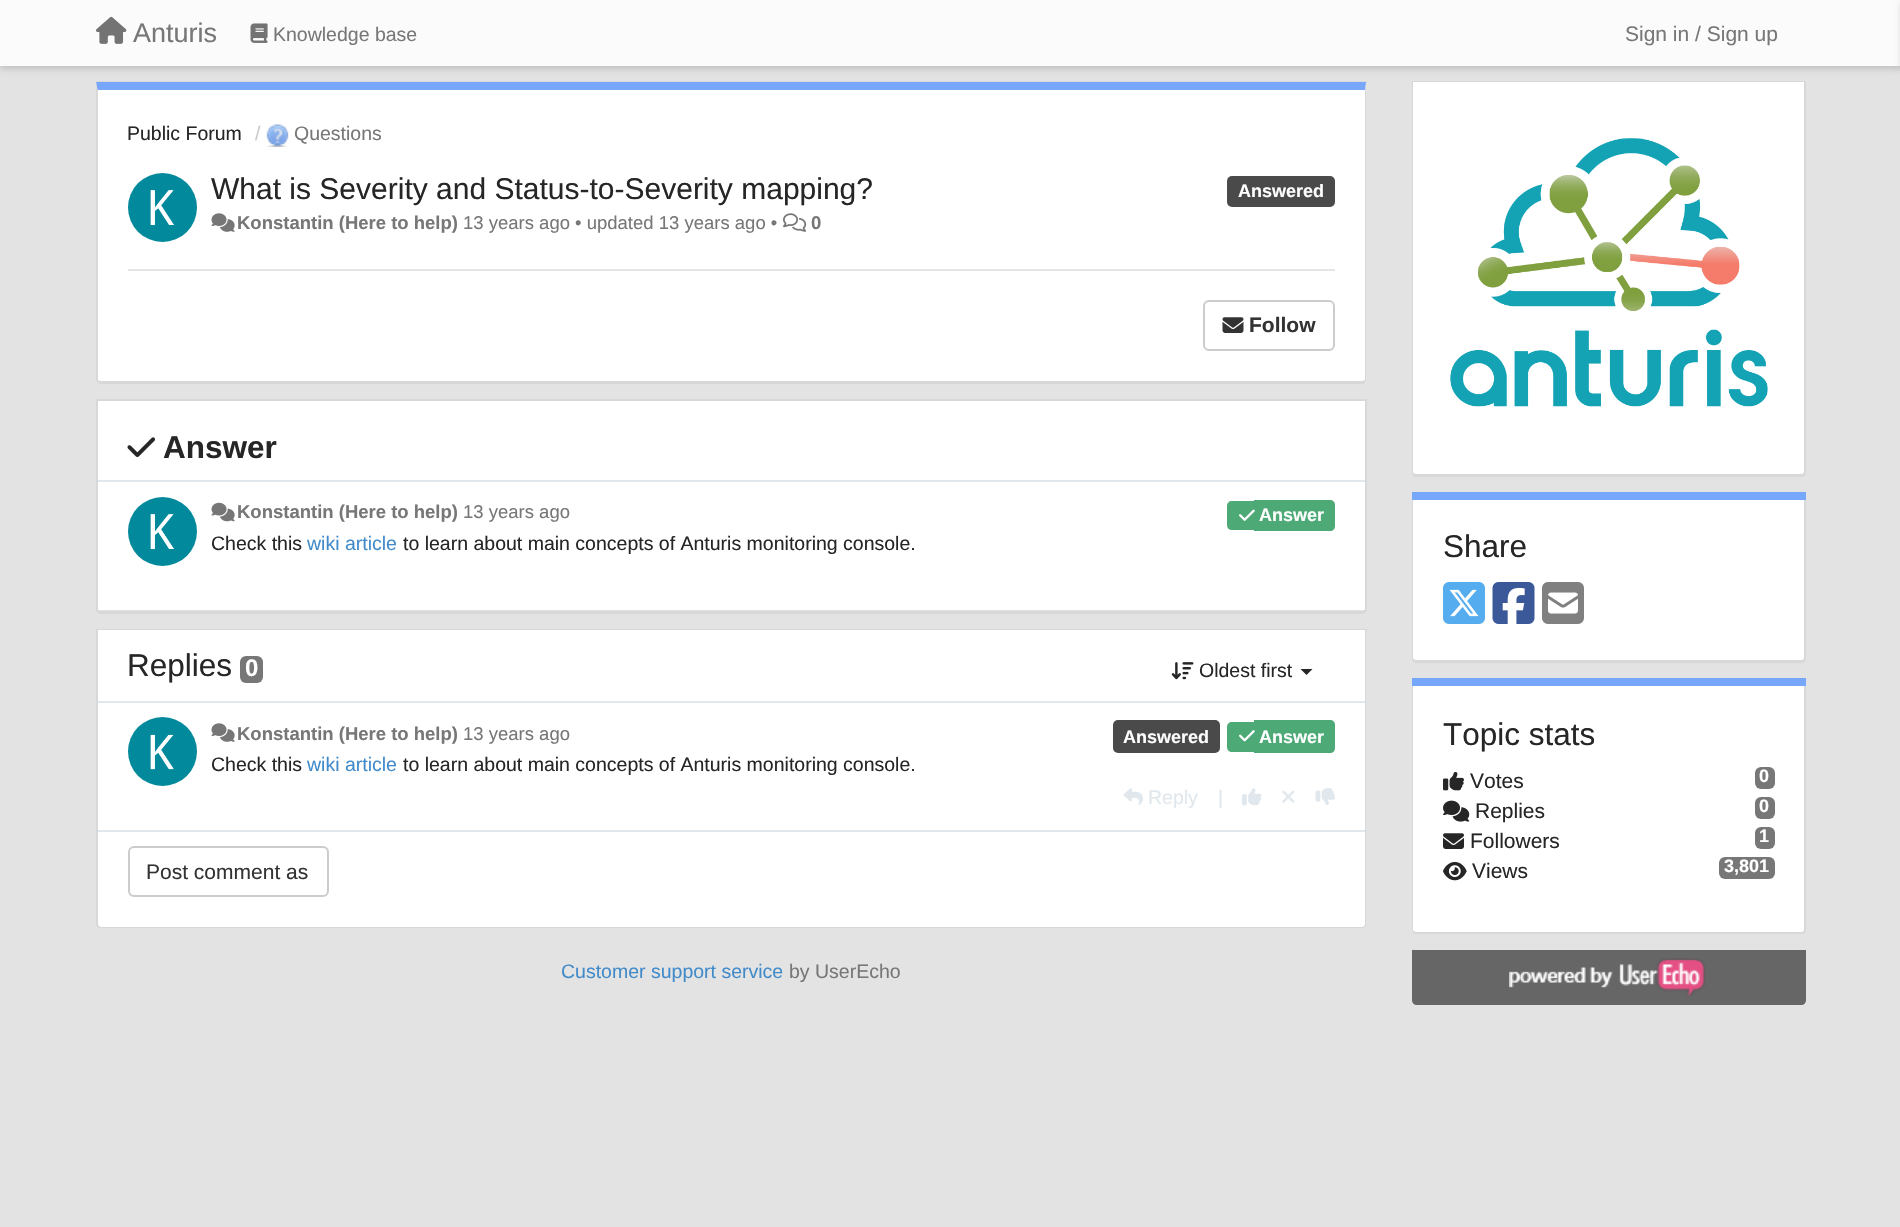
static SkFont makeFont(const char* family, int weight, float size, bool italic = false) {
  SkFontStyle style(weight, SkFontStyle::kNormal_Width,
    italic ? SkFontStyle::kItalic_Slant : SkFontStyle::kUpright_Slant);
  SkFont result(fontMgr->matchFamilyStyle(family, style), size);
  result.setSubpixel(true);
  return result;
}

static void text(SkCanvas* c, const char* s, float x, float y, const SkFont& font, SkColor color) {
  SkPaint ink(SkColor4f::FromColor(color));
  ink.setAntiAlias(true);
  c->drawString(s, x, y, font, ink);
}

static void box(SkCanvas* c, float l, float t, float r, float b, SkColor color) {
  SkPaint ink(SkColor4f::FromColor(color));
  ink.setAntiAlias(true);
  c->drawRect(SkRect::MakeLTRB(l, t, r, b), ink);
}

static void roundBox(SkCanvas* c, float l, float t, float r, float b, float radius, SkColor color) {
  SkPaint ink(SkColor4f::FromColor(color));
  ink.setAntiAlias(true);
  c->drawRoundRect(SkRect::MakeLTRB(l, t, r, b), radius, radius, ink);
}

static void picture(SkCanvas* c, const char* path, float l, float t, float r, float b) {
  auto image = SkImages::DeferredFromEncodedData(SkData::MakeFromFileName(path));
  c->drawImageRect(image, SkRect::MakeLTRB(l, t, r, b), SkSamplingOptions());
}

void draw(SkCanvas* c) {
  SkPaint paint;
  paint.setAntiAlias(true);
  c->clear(0xffe3e3e3);
  paint.setColor(0x26000000);
  paint.setMaskFilter(SkMaskFilter::MakeBlur(kNormal_SkBlurStyle, 3));
  c->drawRect(SkRect::MakeLTRB(0, 3, 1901, 69), paint);
  paint.setMaskFilter(nullptr);
  box(c, 0, 0, 1900, 66, 0xfffbfbfb);
  picture(c, "img_01.png", 96, 16, 127, 44);
  SkFont face1 = makeFont("Liberation Sans", 400, 27);
  text(c, "Anturis", 133, 42, face1, 0xff777777);
  picture(c, "img_02.png", 250, 23, 268, 43);
  SkFont face2 = makeFont("Liberation Sans", 400, 19.5f);
  text(c, "Knowledge base", 273, 41, face2, 0xff777777);
  SkFont face3 = makeFont("Liberation Sans", 400, 21);
  text(c, "Sign in / Sign up", 1625, 41, face3, 0xff777777);
  paint.setMaskFilter(SkMaskFilter::MakeBlur(kNormal_SkBlurStyle, 3));
  c->drawRect(SkRect::MakeLTRB(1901, 3, 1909, 69), paint);
  paint.setMaskFilter(nullptr);
  box(c, 96, 81, 1367, 83, 0xffd8d8d8);
  paint.setColor(0xffffffff);
  c->drawPath(SkPathBuilder().moveTo(98, 90).lineTo(1365, 90).lineTo(1365, 380).cubicTo(1365, 380, 1364, 381, 1362, 381).lineTo(100, 381).cubicTo(99, 381, 98, 380, 98, 380).close().detach(), paint);
  paint.setColor(0xff76a7fa);
  c->drawPath(SkPathBuilder().moveTo(98, 90).lineTo(98, 92).lineTo(96, 82).lineTo(1366, 82).lineTo(1365, 90).close().detach(), paint);
  paint.setColor(0xffd8d8d8);
  c->drawPath(SkPathBuilder().moveTo(1366, 85).lineTo(1366, 380).lineTo(1365, 382).lineTo(1365, 380).lineTo(1365, 90).close().detach(), paint);
  c->drawPath(SkPathBuilder().moveTo(100, 384).lineTo(1362, 384).cubicTo(1363, 384, 1365, 383, 1365, 382).lineTo(1365, 380).lineTo(1362, 381).lineTo(100, 381).lineTo(98, 380).lineTo(97, 382).cubicTo(98, 383, 99, 384, 100, 384).close().detach(), paint);
  c->drawPath(SkPathBuilder().moveTo(96, 82).lineTo(96, 380).lineTo(97, 382).lineTo(98, 380).lineTo(98, 92).close().detach(), paint);
  text(c, "Public Forum", 127, 140, face2, 0xff262626);
  text(c, "/", 255, 140, face2, 0xffcccccc);
  picture(c, "img_03.png", 266, 124, 289, 147);
  text(c, "Questions", 294, 140, face2, 0xff777777);
  paint.setColor(0xff03899c);
  c->drawCircle(162.5f, 207.5f, 34.5f, paint);
  picture(c, "img_04.png", 150, 190, 174, 225);
  SkFont face4 = makeFont("Liberation Sans", 400, 30);
  text(c, "What is Severity and Status-to-Severity mapping?", 211, 199, face4, 0xff262626);
  roundBox(c, 1227, 176, 1335, 207, 5, 0xff4a4a4a);
  SkFont face5 = makeFont("Liberation Sans", 700, 18);
  text(c, "Answered", 1238, 197, face5, 0xffffffff);
  picture(c, "img_05.png", 211, 213, 235, 232);
  SkFont face6 = makeFont("Liberation Sans", 700, 18.5f);
  text(c, "Konstantin (Here to help)", 237, 229, face6, 0xff777777);
  SkFont face7 = makeFont("Liberation Sans", 400, 18.5f);
  text(c, "13 years ago • updated 13 years ago •", 463, 229, face7, 0xff777777);
  picture(c, "img_06.png", 783, 213, 807, 232);
  text(c, "0", 811, 229, face6, 0xff777777);
  box(c, 128, 269, 1335, 271, 0xffe5e5e5);
  paint.setStyle(SkPaint::kStroke_Style);
  paint.setStrokeWidth(2);
  paint.setColor(0xffcccccc);
  c->drawRoundRect(SkRect::MakeLTRB(1204, 301, 1334, 350), 5, 5, paint);
  picture(c, "img_07.png", 1222, 317, 1244, 333);
  SkFont face8 = makeFont("Liberation Sans", 700, 21);
  text(c, "Follow", 1249, 332, face8, 0xff333333);
  paint.setStyle(SkPaint::kFill_Style);
  paint.setColor(0xffffffff);
  c->drawPath(SkPathBuilder().moveTo(98, 400).lineTo(1365, 400).lineTo(1365, 609).cubicTo(1365, 610, 1364, 610, 1362, 610).lineTo(100, 610).cubicTo(99, 610, 98, 610, 98, 609).close().detach(), paint);
  paint.setStyle(SkPaint::kStroke_Style);
  paint.setColor(0xffd8d8d8);
  c->drawPath(SkPathBuilder().moveTo(97, 400).lineTo(1366, 400).lineTo(1366, 609).cubicTo(1366, 611, 1364, 613, 1362, 613).lineTo(101, 613).cubicTo(99, 613, 97, 611, 97, 609).close().detach(), paint);
  box(c, 99, 611, 1365, 612, 0xffd8d8d8);
  picture(c, "img_08.png", 127, 437, 155, 457);
  SkFont face9 = makeFont("Liberation Sans", 700, 31.5f);
  text(c, "Answer", 163, 458, face9, 0xff262626);
  box(c, 98, 480, 1365, 482, 0xffe1e8ed);
  paint.setStyle(SkPaint::kFill_Style);
  paint.setColor(0xff03899c);
  c->drawCircle(162.5f, 531.5f, 34.5f, paint);
  picture(c, "img_04.png", 150, 514, 174, 549);
  picture(c, "img_09.png", 211, 502, 235, 522);
  text(c, "Konstantin (Here to help)", 237, 518, face6, 0xff777777);
  text(c, "13 years ago", 463, 518, face7, 0xff777777);
  paint.setColor(0xff4daa77);
  c->drawPath(SkPathBuilder().moveTo(1232, 501).lineTo(1254, 501).lineTo(1254, 530).lineTo(1232, 530).cubicTo(1229, 530, 1227, 528, 1227, 525).lineTo(1227, 506).cubicTo(1227, 503, 1229, 501, 1232, 501).close().detach(), paint);
  c->drawPath(SkPathBuilder().moveTo(1254, 500).lineTo(1330, 500).cubicTo(1333, 500, 1335, 502, 1335, 505).lineTo(1335, 526).cubicTo(1335, 529, 1333, 531, 1330, 531).lineTo(1254, 531).close().detach(), paint);
  picture(c, "img_10.png", 1239, 509, 1255, 521);
  text(c, "Answer", 1259, 521, face5, 0xffffffff);
  c->save();
  c->clipRect(SkRect::MakeLTRB(212, 531, 1335, 558));
  text(c, "Check this", 211, 550, face2, 0xff262626);
  c->restore();
  text(c, "wiki article", 307, 550, face2, 0xff428bca);
  text(c, "to learn about main concepts of Anturis monitoring console.", 403, 550, face2, 0xff262626);
  box(c, 96, 629, 1367, 631, 0xffd8d8d8);
  paint.setColor(0xffffffff);
  c->drawPath(SkPathBuilder().moveTo(98, 630).lineTo(1365, 630).lineTo(1365, 924).cubicTo(1365, 925.5f, 1363.5f, 927, 1362, 927).lineTo(101, 927).cubicTo(99.5f, 927, 98, 925.5f, 98, 924).close().detach(), paint);
  paint.setColor(0xffd8d8d8);
  c->drawPath(SkPathBuilder(SkPathFillType::kEvenOdd).moveTo(96, 630).lineTo(1366, 630).lineTo(1366, 924).cubicTo(1366, 926, 1364, 928, 1362, 928).lineTo(100, 928).cubicTo(98, 928, 96, 926, 96, 924).close().moveTo(98, 630).lineTo(1365, 630).lineTo(1365, 924).cubicTo(1365, 926, 1364, 927, 1362, 927).lineTo(100, 927).cubicTo(99, 927, 98, 926, 98, 924).close().detach(), paint);
  SkFont face10 = makeFont("Liberation Sans", 400, 31.5f);
  text(c, "Replies", 127, 676, face10, 0xff262626);
  roundBox(c, 240, 656, 263, 683, 6, 0xff777777);
  SkFont face11 = makeFont("Liberation Sans", 700, 24);
  text(c, "0", 245, 676, face11, 0xffffffff);
  picture(c, "img_11.png", 1171, 662, 1194, 680);
  text(c, "Oldest first", 1199, 677, face2, 0xff262626);
  paint.setColor(0xff262626);
  c->drawPath(SkPathBuilder().moveTo(1300.5f, 669).lineTo(1312.5f, 669).lineTo(1306.5f, 675).close().detach(), paint);
  box(c, 98, 701, 1365, 703, 0xffe1e8ed);
  box(c, 98, 830, 1365, 832, 0xffe1e8ed);
  paint.setColor(0xff03899c);
  c->drawCircle(162.5f, 751.5f, 34.5f, paint);
  picture(c, "img_12.png", 150, 734, 174, 770);
  picture(c, "img_05.png", 211, 723, 235, 742);
  text(c, "Konstantin (Here to help)", 237, 740, face6, 0xff777777);
  text(c, "13 years ago", 463, 740, face7, 0xff777777);
  roundBox(c, 1113, 720, 1220, 753, 5, 0xff4a4a4a);
  text(c, "Answered", 1123, 743, face5, 0xffffffff);
  paint.setColor(0xff4daa77);
  c->drawPath(SkPathBuilder().moveTo(1232, 722).lineTo(1254, 722).lineTo(1254, 752).lineTo(1232, 752).cubicTo(1229, 752, 1227, 750, 1227, 747).lineTo(1227, 727).cubicTo(1227, 724, 1229, 722, 1232, 722).close().detach(), paint);
  c->drawPath(SkPathBuilder().moveTo(1254, 720).lineTo(1330, 720).cubicTo(1333, 720, 1335, 722, 1335, 725).lineTo(1335, 748).cubicTo(1335, 751, 1333, 753, 1330, 753).lineTo(1254, 753).close().detach(), paint);
  picture(c, "img_13.png", 1239, 730, 1255, 742);
  text(c, "Answer", 1259, 743, face5, 0xffffffff);
  c->save();
  c->clipRect(SkRect::MakeLTRB(212, 752, 1335, 780));
  text(c, "Check this", 211, 771, face2, 0xff262626);
  c->restore();
  text(c, "wiki article", 307, 771, face2, 0xff428bca);
  text(c, "to learn about main concepts of Anturis monitoring console.", 403, 771, face2, 0xff262626);
  picture(c, "img_14.png", 1123, 788, 1143, 805);
  text(c, "Reply", 1148, 804, face2, 0xffe1e8ed);
  text(c, "|", 1218, 804, face2, 0xffe1e8ed);
  picture(c, "img_15.png", 1242, 788, 1262, 806);
  picture(c, "img_16.png", 1282, 790, 1295, 803);
  picture(c, "img_17.png", 1315, 788, 1335, 805);
  paint.setStyle(SkPaint::kStroke_Style);
  paint.setColor(0xffcccccc);
  c->drawRoundRect(SkRect::MakeLTRB(129, 847, 328, 896), 5, 5, paint);
  text(c, "Post comment as", 146, 879, face3, 0xff333333);
  text(c, "Customer support service", 561, 978, face2, 0xff428bca);
  text(c, "by UserEcho", 789, 978, face2, 0xff777777);
  box(c, 1412, 81, 1806, 82, 0xffd8d8d8);
  paint.setStyle(SkPaint::kFill_Style);
  paint.setColor(0xffffffff);
  c->drawPath(SkPathBuilder().moveTo(1413, 82).lineTo(1804, 82).lineTo(1804, 472).cubicTo(1804, 473, 1803, 474, 1802, 474).lineTo(1416, 474).cubicTo(1414, 474, 1413, 473, 1413, 472).close().detach(), paint);
  paint.setColor(0xffd8d8d8);
  c->drawPath(SkPathBuilder(SkPathFillType::kEvenOdd).moveTo(1412, 82).lineTo(1806, 82).lineTo(1806, 472).cubicTo(1806, 475, 1804, 477, 1802, 477).lineTo(1416, 477).cubicTo(1414, 477, 1412, 475, 1412, 472).close().moveTo(1413, 82).lineTo(1804, 82).lineTo(1804, 472).cubicTo(1804, 473, 1803, 474, 1802, 474).lineTo(1416, 474).cubicTo(1414, 474, 1413, 473, 1413, 472).close().detach(), paint);
  picture(c, "img_18.png", 1450, 138, 1768, 407);
  box(c, 1412, 492, 1806, 500, 0xff76a7fa);
  paint.setColor(0xffffffff);
  c->drawPath(SkPathBuilder().moveTo(1413, 500).lineTo(1804, 500).lineTo(1804, 658).cubicTo(1804, 659, 1803, 660, 1802, 660).lineTo(1416, 660).cubicTo(1414, 660, 1413, 659, 1413, 658).close().detach(), paint);
  paint.setColor(0xffd8d8d8);
  c->drawPath(SkPathBuilder(SkPathFillType::kEvenOdd).moveTo(1412, 500).lineTo(1806, 500).lineTo(1806, 658).cubicTo(1806, 661, 1804, 663, 1802, 663).lineTo(1416, 663).cubicTo(1414, 663, 1412, 661, 1412, 658).close().moveTo(1413, 500).lineTo(1804, 500).lineTo(1804, 658).cubicTo(1804, 659, 1803, 660, 1802, 660).lineTo(1416, 660).cubicTo(1414, 660, 1413, 659, 1413, 658).close().detach(), paint);
  text(c, "Share", 1443, 557, face10, 0xff262626);
  picture(c, "img_19.png", 1443, 582, 1485, 624);
  picture(c, "img_20.png", 1492, 582, 1535, 624);
  picture(c, "img_21.png", 1542, 582, 1584, 624);
  box(c, 1412, 678, 1806, 686, 0xff76a7fa);
  paint.setColor(0xffffffff);
  c->drawPath(SkPathBuilder().moveTo(1413, 686).lineTo(1804, 686).lineTo(1804, 930).cubicTo(1804, 931, 1803, 932, 1802, 932).lineTo(1416, 932).cubicTo(1414, 932, 1413, 931, 1413, 930).close().detach(), paint);
  paint.setColor(0xffd8d8d8);
  c->drawPath(SkPathBuilder(SkPathFillType::kEvenOdd).moveTo(1412, 686).lineTo(1806, 686).lineTo(1806, 930).cubicTo(1806, 932, 1804, 934, 1802, 934).lineTo(1416, 934).cubicTo(1414, 934, 1412, 932, 1412, 930).close().moveTo(1413, 686).lineTo(1804, 686).lineTo(1804, 930).cubicTo(1804, 931, 1803, 932, 1802, 932).lineTo(1416, 932).cubicTo(1414, 932, 1413, 931, 1413, 930).close().detach(), paint);
  text(c, "Topic stats", 1443, 745, face10, 0xff262626);
  picture(c, "img_22.png", 1443, 772, 1464, 791);
  text(c, "Votes", 1470, 788, face3, 0xff262626);
  roundBox(c, 1755, 767, 1775, 789, 6, 0xff777777);
  text(c, "0", 1759, 782, face5, 0xffffffff);
  picture(c, "img_23.png", 1443, 800, 1470, 822);
  text(c, "Replies", 1475, 818, face3, 0xff262626);
  roundBox(c, 1755, 797, 1775, 819, 6, 0xff777777);
  text(c, "0", 1759, 812, face5, 0xffffffff);
  picture(c, "img_24.png", 1443, 833, 1464, 849);
  text(c, "Followers", 1470, 848, face3, 0xff262626);
  roundBox(c, 1755, 827, 1775, 849, 6, 0xff777777);
  text(c, "1", 1759, 842, face5, 0xffffffff);
  picture(c, "img_25.png", 1443, 861, 1467, 881);
  text(c, "Views", 1472, 878, face3, 0xff262626);
  roundBox(c, 1719, 857, 1775, 879, 6, 0xff777777);
  text(c, "3,801", 1724, 872, face5, 0xffffffff);
  paint.setColor(0xff666666);
  c->drawPath(SkPathBuilder().moveTo(1412, 950).lineTo(1806, 950).lineTo(1806, 1000).cubicTo(1806, 1003, 1804, 1005, 1801, 1005).lineTo(1417, 1005).cubicTo(1414, 1005, 1412, 1003, 1412, 1000).close().detach(), paint);
  picture(c, "img_26.png", 1509, 958, 1706, 997);
}
